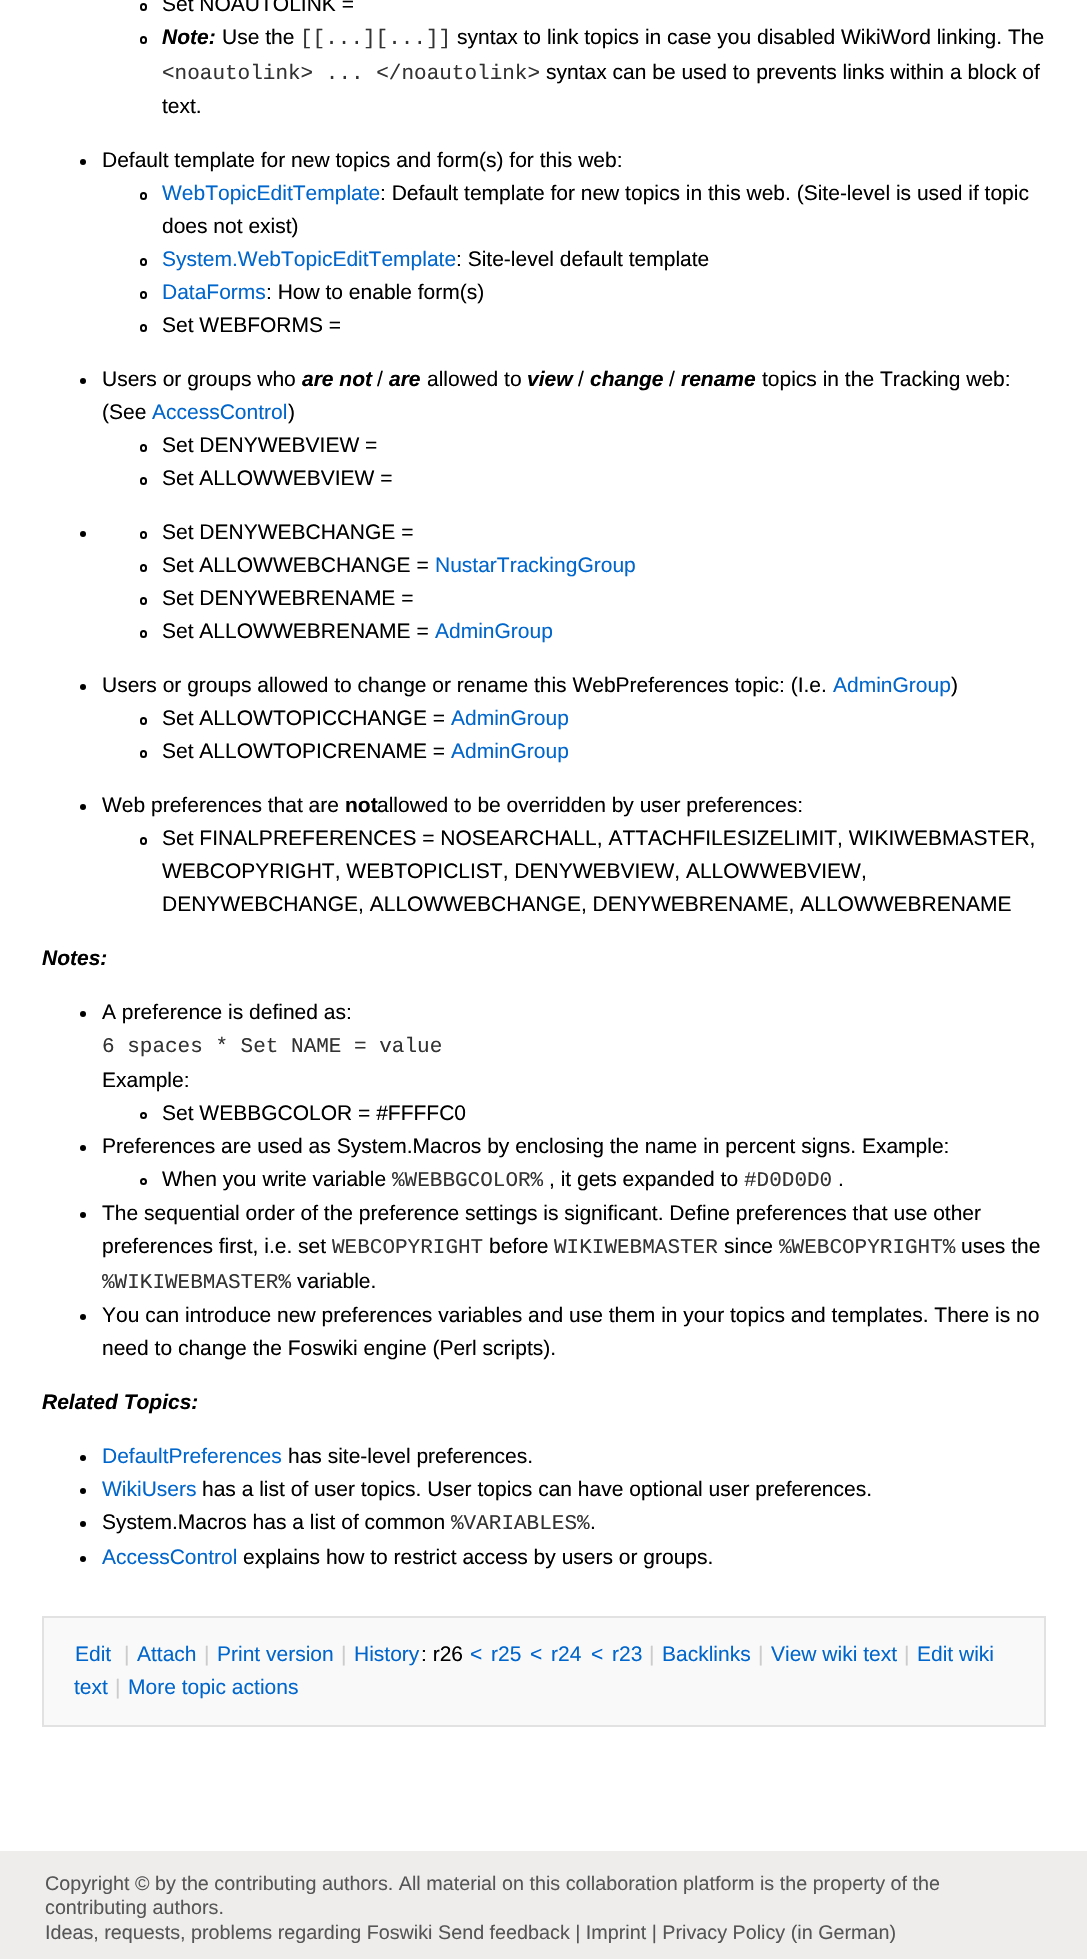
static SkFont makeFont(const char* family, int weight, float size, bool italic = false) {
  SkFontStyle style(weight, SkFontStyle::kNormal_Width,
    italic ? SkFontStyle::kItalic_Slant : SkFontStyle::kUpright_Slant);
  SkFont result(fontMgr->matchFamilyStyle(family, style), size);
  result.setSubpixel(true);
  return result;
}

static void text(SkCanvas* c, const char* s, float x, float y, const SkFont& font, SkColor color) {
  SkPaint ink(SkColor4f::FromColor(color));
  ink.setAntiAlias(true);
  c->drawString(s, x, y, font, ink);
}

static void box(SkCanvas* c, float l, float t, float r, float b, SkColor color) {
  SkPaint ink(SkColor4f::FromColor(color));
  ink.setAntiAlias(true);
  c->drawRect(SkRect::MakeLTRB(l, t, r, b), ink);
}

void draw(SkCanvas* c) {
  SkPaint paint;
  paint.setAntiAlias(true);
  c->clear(0xffffffff);
  paint.setStyle(SkPaint::kStroke_Style);
  paint.setStrokeWidth(2);
  paint.setColor(0xff000000);
  c->drawRoundRect(SkRect::MakeLTRB(141, 4, 146, 10), 2.5f, 2.5f, paint);
  SkFont face1 = makeFont("Liberation Sans", 400, 21);
  text(c, "Set NOAUTOLINK =", 162, 11, face1, 0xff000000);
  c->drawRoundRect(SkRect::MakeLTRB(141, 37, 146, 43), 2.5f, 2.5f, paint);
  SkFont face2 = makeFont("Liberation Sans", 700, 21, true);
  text(c, "Note:", 162, 44, face2, 0xff000000);
  text(c, "Use the", 222, 44, face1, 0xff000000);
  SkFont face3 = makeFont("Liberation Mono", 400, 21);
  text(c, "[[...][...]]", 300, 44, face3, 0xff333333);
  text(c, "syntax to link topics in case you disabled WikiWord linking. The", 457, 44, face1, 0xff000000);
  text(c, "<noautolink> ... </noautolink>", 162, 79, face3, 0xff333333);
  text(c, "syntax can be used to prevents links within a block of", 546, 79, face1, 0xff000000);
  text(c, "text.", 162, 113, face1, 0xff000000);
  paint.setStyle(SkPaint::kFill_Style);
  c->drawCircle(83, 162, 3, paint);
  text(c, "Default template for new topics and form(s) for this web:", 102, 167, face1, 0xff000000);
  paint.setStyle(SkPaint::kStroke_Style);
  c->drawRoundRect(SkRect::MakeLTRB(141, 193, 146, 199), 2.5f, 2.5f, paint);
  text(c, "WebTopicEditTemplate", 162, 200, face1, 0xff0066cc);
  text(c, ": Default template for new topics in this web. (Site-level is used if topic", 380, 200, face1, 0xff000000);
  text(c, "does not exist)", 162, 233, face1, 0xff000000);
  c->drawRoundRect(SkRect::MakeLTRB(141, 259, 146, 265), 2.5f, 2.5f, paint);
  text(c, "System.WebTopicEditTemplate", 162, 266, face1, 0xff0066cc);
  text(c, ": Site-level default template", 456, 266, face1, 0xff000000);
  c->drawRoundRect(SkRect::MakeLTRB(141, 292, 146, 298), 2.5f, 2.5f, paint);
  text(c, "DataForms", 162, 299, face1, 0xff0066cc);
  text(c, ": How to enable form(s)", 266, 299, face1, 0xff000000);
  c->drawRoundRect(SkRect::MakeLTRB(141, 325, 146, 331), 2.5f, 2.5f, paint);
  text(c, "Set WEBFORMS =", 162, 332, face1, 0xff000000);
  paint.setStyle(SkPaint::kFill_Style);
  c->drawCircle(83, 381, 3, paint);
  text(c, "Users or groups who", 102, 386, face1, 0xff000000);
  text(c, "are not", 302, 386, face2, 0xff000000);
  text(c, "/", 377, 386, face1, 0xff000000);
  text(c, "are", 389, 386, face2, 0xff000000);
  text(c, "allowed to", 427, 386, face1, 0xff000000);
  text(c, "view", 527, 386, face2, 0xff000000);
  text(c, "/", 578, 386, face1, 0xff000000);
  text(c, "change", 590, 386, face2, 0xff000000);
  text(c, "/", 669, 386, face1, 0xff000000);
  text(c, "rename", 681, 386, face2, 0xff000000);
  text(c, "topics in the Tracking web:", 762, 386, face1, 0xff000000);
  text(c, "(See", 102, 419, face1, 0xff000000);
  text(c, "AccessControl", 152, 419, face1, 0xff0066cc);
  text(c, ")", 288, 419, face1, 0xff000000);
  paint.setStyle(SkPaint::kStroke_Style);
  c->drawRoundRect(SkRect::MakeLTRB(141, 445, 146, 451), 2.5f, 2.5f, paint);
  text(c, "Set DENYWEBVIEW =", 162, 452, face1, 0xff000000);
  c->drawRoundRect(SkRect::MakeLTRB(141, 478, 146, 484), 2.5f, 2.5f, paint);
  text(c, "Set ALLOWWEBVIEW =", 162, 485, face1, 0xff000000);
  paint.setStyle(SkPaint::kFill_Style);
  c->drawCircle(83, 534, 3, paint);
  paint.setStyle(SkPaint::kStroke_Style);
  c->drawRoundRect(SkRect::MakeLTRB(141, 532, 146, 538), 2.5f, 2.5f, paint);
  text(c, "Set DENYWEBCHANGE =", 162, 539, face1, 0xff000000);
  c->drawRoundRect(SkRect::MakeLTRB(141, 565, 146, 571), 2.5f, 2.5f, paint);
  text(c, "Set ALLOWWEBCHANGE =", 162, 572, face1, 0xff000000);
  text(c, "NustarTrackingGroup", 435, 572, face1, 0xff0066cc);
  c->drawRoundRect(SkRect::MakeLTRB(141, 598, 146, 604), 2.5f, 2.5f, paint);
  text(c, "Set DENYWEBRENAME =", 162, 605, face1, 0xff000000);
  c->drawRoundRect(SkRect::MakeLTRB(141, 631, 146, 637), 2.5f, 2.5f, paint);
  text(c, "Set ALLOWWEBRENAME =", 162, 638, face1, 0xff000000);
  text(c, "AdminGroup", 435, 638, face1, 0xff0066cc);
  paint.setStyle(SkPaint::kFill_Style);
  c->drawCircle(83, 687, 3, paint);
  text(c, "Users or groups allowed to change or rename this WebPreferences topic: (I.e.", 102, 692, face1, 0xff000000);
  text(c, "AdminGroup", 833, 692, face1, 0xff0066cc);
  text(c, ")", 951, 692, face1, 0xff000000);
  paint.setStyle(SkPaint::kStroke_Style);
  c->drawRoundRect(SkRect::MakeLTRB(141, 718, 146, 724), 2.5f, 2.5f, paint);
  text(c, "Set ALLOWTOPICCHANGE =", 162, 725, face1, 0xff000000);
  text(c, "AdminGroup", 451, 725, face1, 0xff0066cc);
  c->drawRoundRect(SkRect::MakeLTRB(141, 751, 146, 757), 2.5f, 2.5f, paint);
  text(c, "Set ALLOWTOPICRENAME =", 162, 758, face1, 0xff000000);
  text(c, "AdminGroup", 451, 758, face1, 0xff0066cc);
  paint.setStyle(SkPaint::kFill_Style);
  c->drawCircle(83, 807, 3, paint);
  text(c, "Web preferences that are", 102, 812, face1, 0xff000000);
  SkFont face4 = makeFont("Liberation Sans", 700, 21);
  text(c, "not", 345, 812, face4, 0xff000000);
  text(c, "allowed to be overridden by user preferences:", 377, 812, face1, 0xff000000);
  paint.setStyle(SkPaint::kStroke_Style);
  c->drawRoundRect(SkRect::MakeLTRB(141, 838, 146, 844), 2.5f, 2.5f, paint);
  text(c, "Set FINALPREFERENCES = NOSEARCHALL, ATTACHFILESIZELIMIT, WIKIWEBMASTER,", 162, 845, face1, 0xff000000);
  text(c, "WEBCOPYRIGHT, WEBTOPICLIST, DENYWEBVIEW, ALLOWWEBVIEW,", 162, 878, face1, 0xff000000);
  text(c, "DENYWEBCHANGE, ALLOWWEBCHANGE, DENYWEBRENAME, ALLOWWEBRENAME", 162, 911, face1, 0xff000000);
  text(c, "Notes:", 42, 965, face2, 0xff000000);
  paint.setStyle(SkPaint::kFill_Style);
  c->drawCircle(83, 1014, 3, paint);
  text(c, "A preference is defined as:", 102, 1019, face1, 0xff000000);
  text(c, "6 spaces * Set NAME = value", 102, 1052, face3, 0xff333333);
  text(c, "Example:", 102, 1087, face1, 0xff000000);
  paint.setStyle(SkPaint::kStroke_Style);
  c->drawCircle(143.5f, 1115.5f, 2.5f, paint);
  text(c, "Set WEBBGCOLOR = #FFFFC0", 162, 1120, face1, 0xff000000);
  paint.setStyle(SkPaint::kFill_Style);
  c->drawCircle(83, 1148, 3, paint);
  text(c, "Preferences are used as System.Macros by enclosing the name in percent signs. Example:", 102, 1153, face1, 0xff000000);
  paint.setStyle(SkPaint::kStroke_Style);
  c->drawCircle(143.5f, 1181.5f, 2.5f, paint);
  text(c, "When you write variable", 162, 1186, face1, 0xff000000);
  text(c, "%WEBBGCOLOR%", 392, 1186, face3, 0xff333333);
  text(c, ", it gets expanded to", 549, 1186, face1, 0xff000000);
  text(c, "#D0D0D0", 744, 1186, face3, 0xff333333);
  text(c, ".", 838, 1186, face1, 0xff000000);
  paint.setStyle(SkPaint::kFill_Style);
  c->drawCircle(83, 1215, 3, paint);
  text(c, "The sequential order of the preference settings is significant. Define preferences that use other", 102, 1220, face1, 0xff000000);
  text(c, "preferences first, i.e. set", 102, 1253, face1, 0xff000000);
  text(c, "WEBCOPYRIGHT", 332, 1253, face3, 0xff333333);
  text(c, "before", 489, 1253, face1, 0xff000000);
  text(c, "WIKIWEBMASTER", 554, 1253, face3, 0xff333333);
  text(c, "since", 724, 1253, face1, 0xff000000);
  text(c, "%WEBCOPYRIGHT%", 779, 1253, face3, 0xff333333);
  text(c, "uses the", 961, 1253, face1, 0xff000000);
  text(c, "%WIKIWEBMASTER%", 102, 1288, face3, 0xff333333);
  text(c, "variable.", 297, 1288, face1, 0xff000000);
  c->drawCircle(83, 1317, 3, paint);
  text(c, "You can introduce new preferences variables and use them in your topics and templates. There is no", 102, 1322, face1, 0xff000000);
  text(c, "need to change the Foswiki engine (Perl scripts).", 102, 1355, face1, 0xff000000);
  text(c, "Related Topics:", 42, 1409, face2, 0xff000000);
  c->drawCircle(83, 1458, 3, paint);
  text(c, "DefaultPreferences", 102, 1463, face1, 0xff0066cc);
  text(c, "has site-level preferences.", 288, 1463, face1, 0xff000000);
  c->drawCircle(83, 1491, 3, paint);
  text(c, "WikiUsers", 102, 1496, face1, 0xff0066cc);
  text(c, "has a list of user topics. User topics can have optional user preferences.", 202, 1496, face1, 0xff000000);
  c->drawCircle(83, 1524, 3, paint);
  text(c, "System.Macros has a list of common", 102, 1529, face1, 0xff000000);
  text(c, "%VARIABLES%", 451, 1529, face3, 0xff333333);
  text(c, ".", 590, 1529, face1, 0xff000000);
  c->drawCircle(83, 1559, 3, paint);
  text(c, "AccessControl", 102, 1564, face1, 0xff0066cc);
  text(c, "explains how to restrict access by users or groups.", 243, 1564, face1, 0xff000000);
  paint.setColor(0xfff9f9fa);
  c->drawRect(SkRect::MakeLTRB(43, 1617, 1045, 1726), paint);
  paint.setStyle(SkPaint::kStroke_Style);
  paint.setColor(0xffe2e2e2);
  c->drawRect(SkRect::MakeLTRB(43, 1617, 1045, 1726), paint);
  text(c, "Edit", 75, 1661, face1, 0xff0066cc);
  text(c, "|", 124, 1661, face1, 0xffcccccc);
  text(c, "Attach", 137, 1661, face1, 0xff0066cc);
  text(c, "|", 204, 1661, face1, 0xffcccccc);
  text(c, "Print version", 217, 1661, face1, 0xff0066cc);
  text(c, "|", 341, 1661, face1, 0xffcccccc);
  text(c, "History", 354, 1661, face1, 0xff0066cc);
  text(c, ": r26", 421, 1661, face1, 0xff000000);
  text(c, "<", 470, 1661, face1, 0xff0066cc);
  text(c, "r25", 491, 1661, face1, 0xff0066cc);
  text(c, "<", 530, 1661, face1, 0xff0066cc);
  text(c, "r24", 551, 1661, face1, 0xff0066cc);
  text(c, "<", 591, 1661, face1, 0xff0066cc);
  text(c, "r23", 612, 1661, face1, 0xff0066cc);
  text(c, "|", 649, 1661, face1, 0xffcccccc);
  text(c, "Backlinks", 662, 1661, face1, 0xff0066cc);
  text(c, "|", 758, 1661, face1, 0xffcccccc);
  text(c, "View wiki text", 771, 1661, face1, 0xff0066cc);
  text(c, "|", 904, 1661, face1, 0xffcccccc);
  text(c, "Edit wiki", 917, 1661, face1, 0xff0066cc);
  text(c, "text", 74, 1694, face1, 0xff0066cc);
  text(c, "|", 115, 1694, face1, 0xffcccccc);
  text(c, "More topic actions", 128, 1694, face1, 0xff0066cc);
  box(c, 0, 1851, 1087, 1959, 0xffeeedec);
  SkFont face5 = makeFont("Liberation Sans", 400, 19.75f);
  text(c, "Copyright © by the contributing authors. All material on this collaboration platform is the property of the", 45, 1890, face5, 0xff565656);
  text(c, "contributing authors.", 45, 1914, face5, 0xff565656);
  text(c, "Ideas, requests, problems regarding Foswiki Send feedback | Imprint | Privacy Policy (in German)", 45, 1939, face5, 0xff565656);
}
